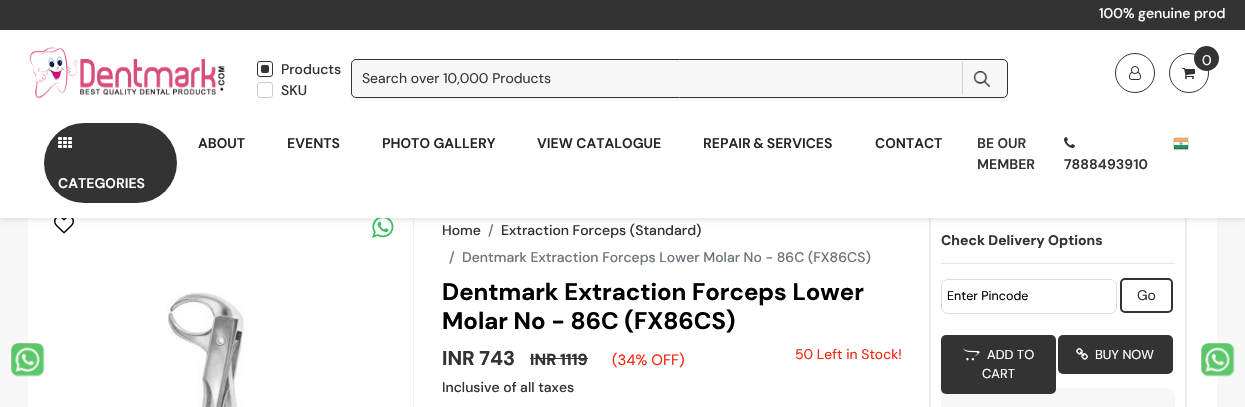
static SkFont makeFont(const char* family, int weight, float size, bool italic = false) {
  SkFontStyle style(weight, SkFontStyle::kNormal_Width,
    italic ? SkFontStyle::kItalic_Slant : SkFontStyle::kUpright_Slant);
  SkFont result(fontMgr->matchFamilyStyle(family, style), size);
  result.setSubpixel(true);
  return result;
}

static void text(SkCanvas* c, const char* s, float x, float y, const SkFont& font, SkColor color) {
  SkPaint ink(SkColor4f::FromColor(color));
  ink.setAntiAlias(true);
  c->drawString(s, x, y, font, ink);
}

static void spacedText(SkCanvas* c, const char* s, float x, float y, const SkFont& font, const SkPaint& ink, float letter, float word) {
  std::vector<SkGlyphID> glyphs(font.countText(s, strlen(s), SkTextEncoding::kUTF8));
  std::vector<float> xs(glyphs.size());
  font.textToGlyphs(s, strlen(s), SkTextEncoding::kUTF8, glyphs);
  font.getXPos(glyphs, xs, x);
  float extra = 0;
  for (size_t i = 0; i < glyphs.size(); i++) {
    xs[i] += extra;
    extra += letter + word * (glyphs[i] == font.unicharToGlyph(' '));
  }
  c->drawTextBlob(SkTextBlob::MakeFromPosHGlyphs(glyphs, xs, y, font), 0, 0, ink);
}

static void box(SkCanvas* c, float l, float t, float r, float b, SkColor color) {
  SkPaint ink(SkColor4f::FromColor(color));
  ink.setAntiAlias(true);
  c->drawRect(SkRect::MakeLTRB(l, t, r, b), ink);
}

static void roundBox(SkCanvas* c, float l, float t, float r, float b, float radius, SkColor color) {
  SkPaint ink(SkColor4f::FromColor(color));
  ink.setAntiAlias(true);
  c->drawRoundRect(SkRect::MakeLTRB(l, t, r, b), radius, radius, ink);
}

static void picture(SkCanvas* c, const char* path, float l, float t, float r, float b) {
  auto image = SkImages::DeferredFromEncodedData(SkData::MakeFromFileName(path));
  c->drawImageRect(image, SkRect::MakeLTRB(l, t, r, b), SkSamplingOptions());
}

void draw(SkCanvas* c) {
  SkPaint paint;
  paint.setAntiAlias(true);
  c->clear(0xfff7f7f7);
  box(c, 28, 218, 1217, 407, 0xffffffff);
  box(c, 413, 218, 414, 407, 0xffeeeeee);
  picture(c, "img_09.png", 54, 218, 74, 234);
  picture(c, "img_10.png", 372, 218, 394, 238);
  paint.setStyle(SkPaint::kStroke_Style);
  paint.setStrokeWidth(2);
  paint.setColor(0xffeeeeee);
  c->drawRect(SkRect::MakeLTRB(930, 210, 1186, 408), paint);
  paint.setStyle(SkPaint::kFill_Style);
  paint.setColor(0x1a000000);
  paint.setMaskFilter(SkMaskFilter::MakeBlur(kNormal_SkBlurStyle, 2.5f));
  c->drawRect(SkRect::MakeLTRB(0, 29, 1245, 220), paint);
  paint.setMaskFilter(nullptr);
  box(c, 0, 0, 1245, 30, 0xff333333);
  SkFont face1 = makeFont("DM Sans", 500, 14);
  text(c, "100% genuine prod", 1099, 18, face1, 0xffffffff);
  box(c, 0, 30, 1245, 218, 0xffffffff);
  paint.setStyle(SkPaint::kStroke_Style);
  paint.setStrokeWidth(1);
  paint.setColor(0xff333333);
  c->drawCircle(1135, 73, 19.5f, paint);
  picture(c, "img_01.png", 1129, 66, 1141, 80);
  c->drawCircle(1189, 73, 19.5f, paint);
  picture(c, "img_02.png", 1182, 68, 1195, 79);
  paint.setStyle(SkPaint::kFill_Style);
  c->drawCircle(1206.5f, 58.5f, 12.5f, paint);
  SkFont face2 = makeFont("DM Sans", 400, 14);
  text(c, "0", 1202, 65, face2, 0xffffffff);
  picture(c, "img_03.png", 29, 47, 225, 99);
  paint.setStyle(SkPaint::kStroke_Style);
  c->drawRoundRect(SkRect::MakeLTRB(257.5f, 61.5f, 272.5f, 76.5f), 2.5f, 2.5f, paint);
  roundBox(c, 261, 65, 269, 73, 2, 0xff333333);
  text(c, "Products", 281, 74, face1, 0xff333333);
  paint.setColor(0xffcccccc);
  c->drawRoundRect(SkRect::MakeLTRB(257.5f, 82.5f, 272.5f, 97.5f), 2.5f, 2.5f, paint);
  text(c, "SKU", 281, 95, face1, 0xff333333);
  paint.setStyle(SkPaint::kFill_Style);
  paint.setColor(0xfff7f7f7);
  c->drawPath(SkPathBuilder().moveTo(351, 59).lineTo(1003, 59).cubicTo(1006, 59, 1008, 61, 1008, 64).lineTo(1008, 96).cubicTo(1008, 99, 1006, 101, 1003, 101).lineTo(351, 101).close().detach(), paint);
  paint.setStyle(SkPaint::kStroke_Style);
  paint.setColor(0xff333333);
  c->drawRoundRect(SkRect::MakeLTRB(351.5f, 59.5f, 1007.5f, 97.5f), 4.5f, 4.5f, paint);
  text(c, "Search over 10,000 Products", 362, 83, face2, 0xff333333);
  paint.setStyle(SkPaint::kFill_Style);
  paint.setColor(0xffd0d0d0);
  c->drawPath(SkPathBuilder().moveTo(962, 95).lineTo(962, 61).lineTo(963, 62).lineTo(963, 94).close().detach(), paint);
  picture(c, "img_04.png", 973, 71, 990, 87);
  SkFont face3 = makeFont("DM Sans", 600, 14);
  text(c, "ABOUT", 198, 148, face3, 0xff212529);
  text(c, "EVENTS", 287, 148, face3, 0xff212529);
  text(c, "PHOTO GALLERY", 382, 148, face3, 0xff212529);
  text(c, "VIEW CATALOGUE", 537, 148, face3, 0xff212529);
  paint.setColor(0xff212529);
  spacedText(c, "REPAIR & SERVICES", 703, 148, face3, paint, 0, -1);
  text(c, "CONTACT", 875, 148, face3, 0xff212529);
  text(c, "BE OUR", 977, 148, face3, 0xff333333);
  text(c, "MEMBER", 977, 169, face3, 0xff333333);
  picture(c, "img_05.png", 1064, 137, 1075, 148);
  text(c, "7888493910", 1064, 169, face3, 0xff333333);
  picture(c, "img_06.png", 1173, 137, 1189, 151);
  roundBox(c, 44, 123, 177, 203, 40, 0xff333333);
  picture(c, "img_07.png", 58, 137, 72, 148);
  text(c, "CATEGORIES", 58, 188, face3, 0xffffffff);
  picture(c, "img_08.png", 11, 343, 45, 377);
  picture(c, "img_11.png", 167, 292, 244, 407);
  text(c, "Home", 442, 235, face1, 0xff333333);
  text(c, "/", 488, 235, face1, 0xff6c757d);
  text(c, "Extraction Forceps (Standard)", 501, 235, face1, 0xff333333);
  text(c, "/", 449, 262, face1, 0xff6c757d);
  text(c, "Dentmark Extraction Forceps Lower Molar No - 86C (FX86CS)", 462, 262, face1, 0xff6c757d);
  SkFont face4 = makeFont("DM Sans", 700, 24);
  text(c, "Dentmark Extraction Forceps Lower", 442, 300, face4, 0xff000000);
  text(c, "Molar No - 86C (FX86CS)", 442, 329, face4, 0xff000000);
  SkFont face5 = makeFont("DM Sans", 800, 20);
  text(c, "INR 743", 442, 365, face5, 0xff333333);
  SkFont face6 = makeFont("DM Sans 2", 800, 16);
  text(c, "INR 1119", 530, 365, face6, 0xff333333);
  box(c, 530, 358, 588, 359, 0xff333333);
  SkFont face7 = makeFont("DM Sans 2", 400, 15);
  text(c, "(34% OFF)", 612, 365, face7, 0xfff2250f);
  text(c, "50 Left in Stock!", 795, 359, face2, 0xfff2250f);
  text(c, "Inclusive of all taxes", 442, 392, face1, 0xff333333);
  SkFont face8 = makeFont("DM Sans 2", 700, 14);
  text(c, "Check Delivery Options", 941, 245, face8, 0xff333333);
  box(c, 941, 263, 1175, 264, 0xffe6e6e6);
  paint.setStyle(SkPaint::kStroke_Style);
  paint.setColor(0xffdddddd);
  c->drawRoundRect(SkRect::MakeLTRB(941.5f, 279.5f, 1116.5f, 313.5f), 6.5f, 6.5f, paint);
  SkFont face9 = makeFont("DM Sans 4", 400, 12.5f);
  text(c, "Enter Pincode", 947, 300, face9, 0xff000000);
  paint.setStrokeWidth(2);
  paint.setColor(0xff333333);
  c->drawRoundRect(SkRect::MakeLTRB(1121, 279, 1172, 312), 4, 4, paint);
  text(c, "Go", 1137, 300, face2, 0xff333333);
  roundBox(c, 941, 388, 1175, 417, 10, 0xfff7f7f7);
  roundBox(c, 941, 335, 1056, 394, 5, 0xff333333);
  picture(c, "img_12.png", 963, 348, 980, 361);
  SkFont face10 = makeFont("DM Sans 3", 400, 13);
  text(c, "ADD TO", 987, 359, face10, 0xffffffff);
  text(c, "CART", 982, 378, face10, 0xffffffff);
  roundBox(c, 1058, 335, 1173, 374, 5, 0xff333333);
  picture(c, "img_13.png", 1076, 348, 1088, 360);
  text(c, "BUY NOW", 1095, 359, face10, 0xffffffff);
  picture(c, "img_14.png", 1201, 343, 1235, 377);
}
